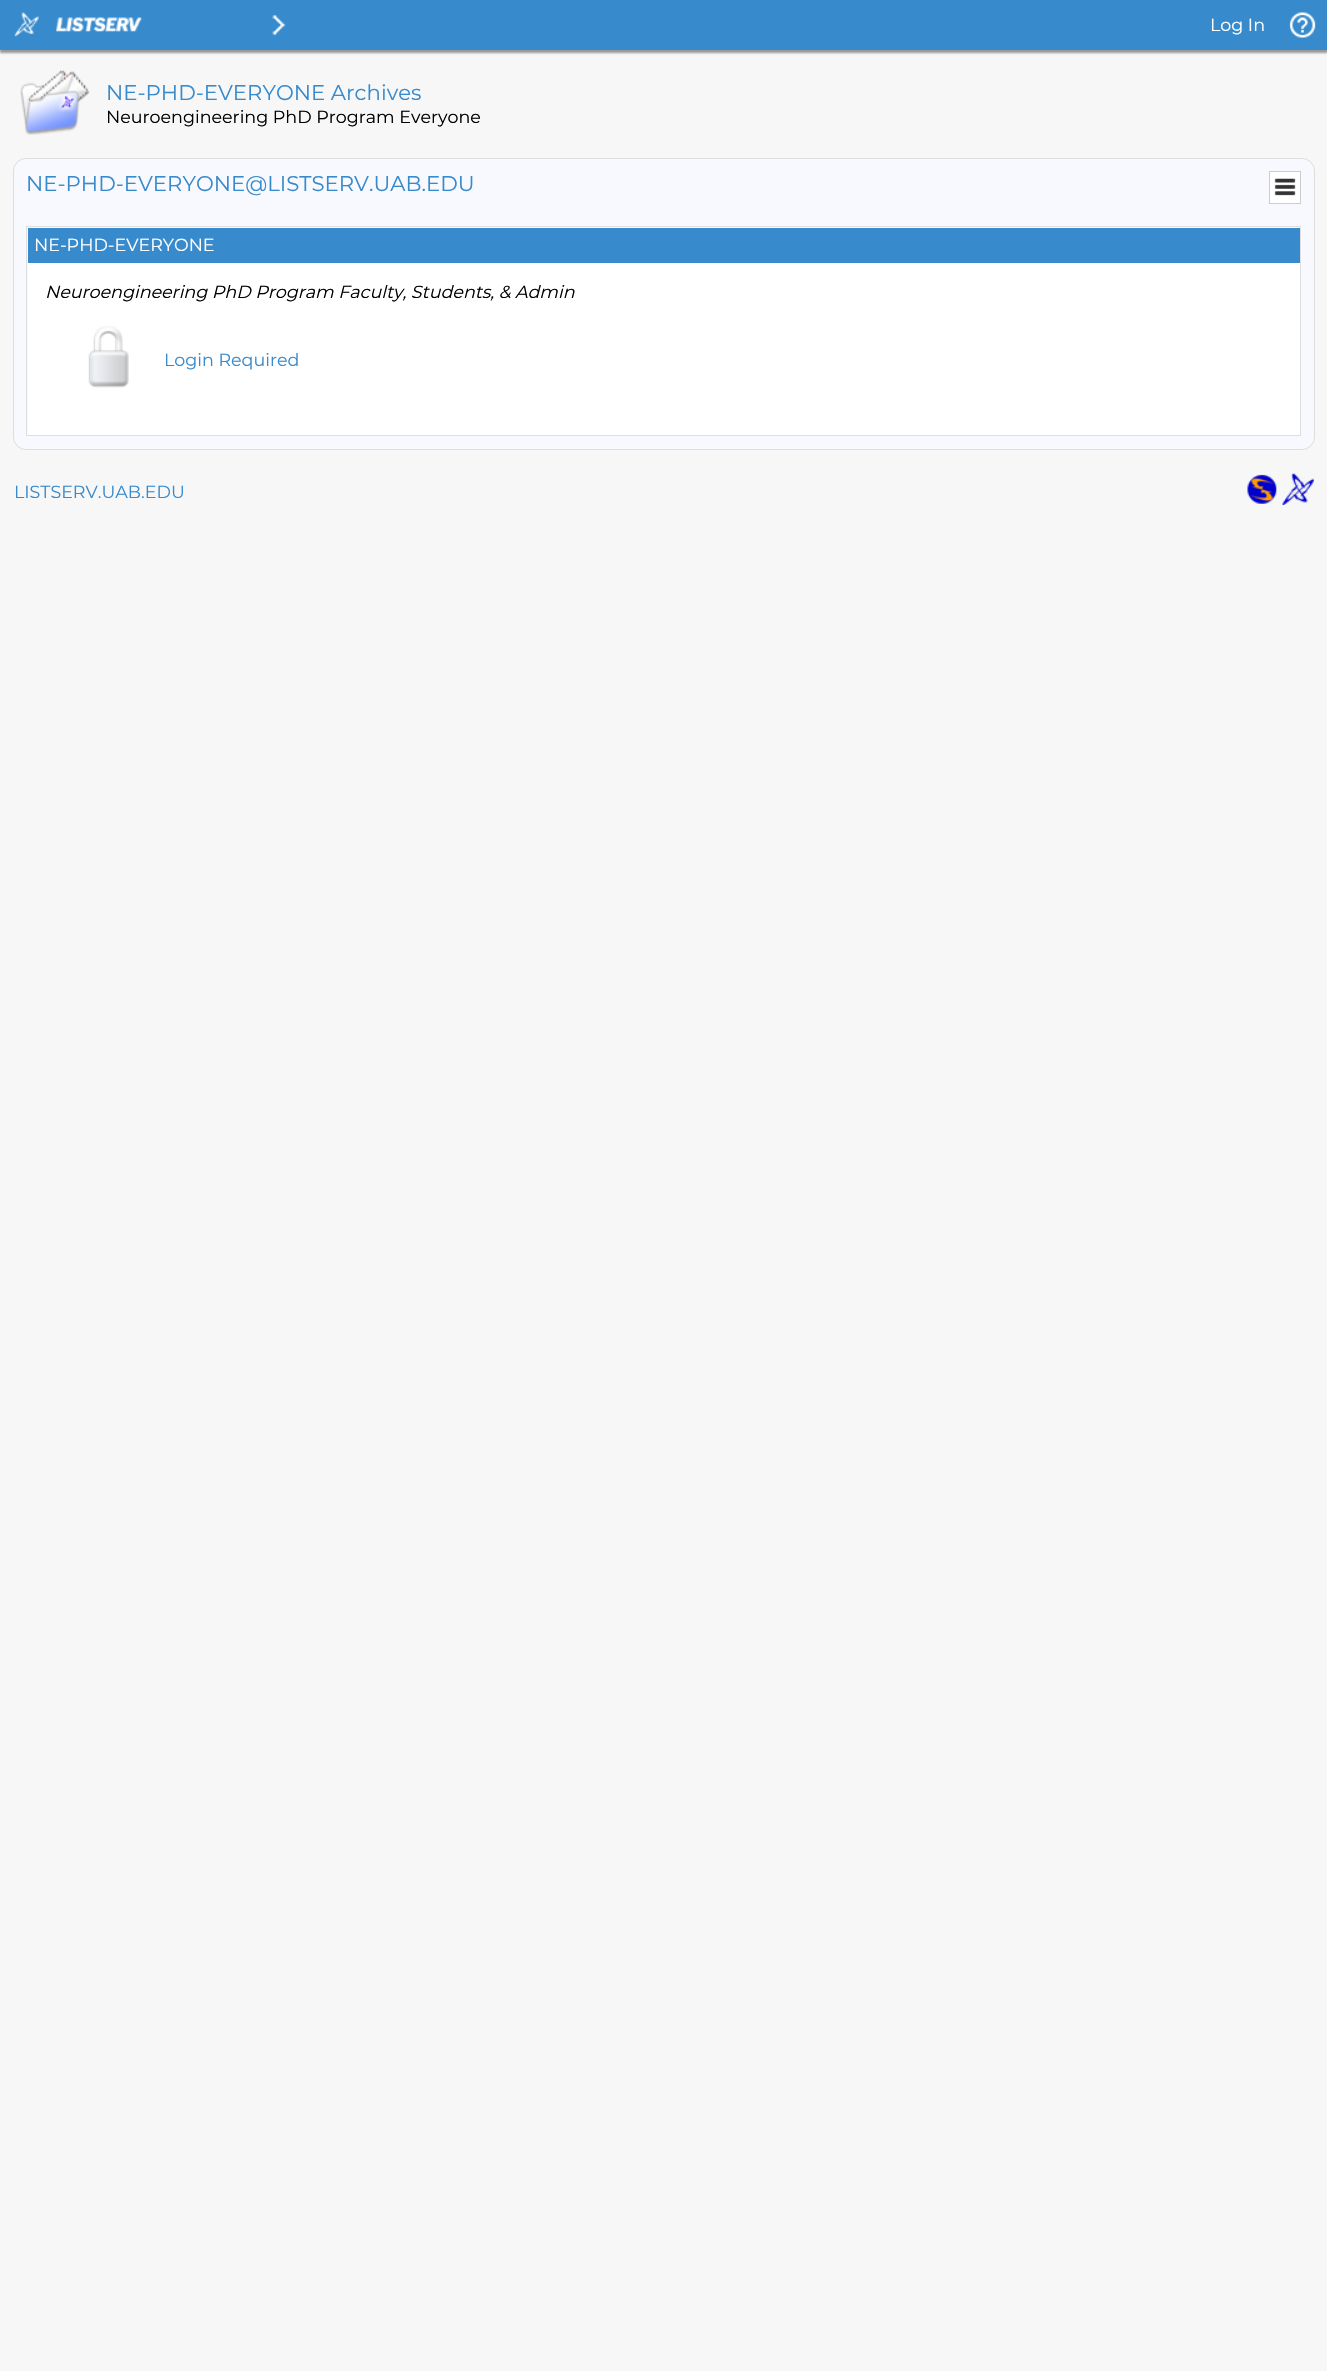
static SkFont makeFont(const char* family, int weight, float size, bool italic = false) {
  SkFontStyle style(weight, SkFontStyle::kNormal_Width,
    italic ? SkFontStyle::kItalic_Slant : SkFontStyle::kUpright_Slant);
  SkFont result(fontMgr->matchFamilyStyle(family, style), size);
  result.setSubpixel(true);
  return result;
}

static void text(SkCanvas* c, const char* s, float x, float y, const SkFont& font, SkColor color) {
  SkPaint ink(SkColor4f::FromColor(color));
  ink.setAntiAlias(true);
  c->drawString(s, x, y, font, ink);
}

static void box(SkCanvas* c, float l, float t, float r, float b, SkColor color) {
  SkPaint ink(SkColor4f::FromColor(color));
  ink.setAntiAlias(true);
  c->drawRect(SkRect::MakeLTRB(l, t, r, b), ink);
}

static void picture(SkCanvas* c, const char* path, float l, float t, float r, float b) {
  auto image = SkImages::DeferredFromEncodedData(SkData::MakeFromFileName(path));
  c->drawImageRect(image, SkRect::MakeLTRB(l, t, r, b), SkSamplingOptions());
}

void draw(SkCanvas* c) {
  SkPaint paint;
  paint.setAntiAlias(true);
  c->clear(0xfff7f7f7);
  paint.setColor(0xff999999);
  paint.setMaskFilter(SkMaskFilter::MakeBlur(kNormal_SkBlurStyle, 1));
  c->drawRect(SkRect::MakeLTRB(0, 3, 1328, 53), paint);
  paint.setMaskFilter(nullptr);
  box(c, 0, 0, 1327, 50, 0xff378acc);
  picture(c, "img_01.png", 14, 12, 39, 37);
  picture(c, "img_02.png", 56, 17, 142, 32);
  picture(c, "img_03.png", 272, 14, 286, 36);
  SkFont face1 = makeFont("Montserrat", 100, 17.5f);
  text(c, "Log In", 1210, 31, face1, 0xffffffff);
  picture(c, "img_04.png", 1289, 12, 1316, 38);
  picture(c, "img_05.png", 20, 70, 90, 135);
  SkFont face2 = makeFont("Montserrat", 100, 21.25f);
  text(c, "NE-PHD-EVERYONE Archives", 106, 100, face2, 0xff378acc);
  text(c, "Neuroengineering PhD Program Everyone", 106, 123, face1, 0xff000000);
  paint.setColor(0xfff7f9fe);
  c->drawRoundRect(SkRect::MakeLTRB(13.5f, 158.5f, 1314.5f, 449.5f), 12.5f, 12.5f, paint);
  paint.setStyle(SkPaint::kStroke_Style);
  paint.setStrokeWidth(1);
  paint.setColor(0xffdedede);
  c->drawRoundRect(SkRect::MakeLTRB(13.5f, 158.5f, 1314.5f, 449.5f), 12.5f, 12.5f, paint);
  text(c, "NE-PHD-EVERYONE@LISTSERV.UAB.EDU", 26, 191, face2, 0xff378acc);
  paint.setStyle(SkPaint::kFill_Style);
  paint.setColor(0xffffffff);
  c->drawRect(SkRect::MakeLTRB(1269.5f, 171.5f, 1300.5f, 203.5f), paint);
  paint.setStyle(SkPaint::kStroke_Style);
  paint.setColor(0xffcccccc);
  c->drawRect(SkRect::MakeLTRB(1269.5f, 171.5f, 1300.5f, 203.5f), paint);
  picture(c, "img_06.png", 1274, 178, 1296, 196);
  paint.setColor(0xffdedede);
  c->drawRect(SkRect::MakeLTRB(26.5f, 226.5f, 1300.5f, 435.5f), paint);
  box(c, 28, 228, 1300, 263, 0xff378acc);
  text(c, "NE-PHD-EVERYONE", 34, 251, face1, 0xffffffff);
  box(c, 28, 263, 1300, 435, 0xffffffff);
  SkFont face3 = makeFont("Montserrat", 100, 17.5f, true);
  text(c, "Neuroengineering PhD Program Faculty, Students, & Admin", 45, 298, face3, 0xff000000);
  picture(c, "img_07.png", 88, 326, 129, 388);
  text(c, "Login Required", 164, 366, face1, 0xff378acc);
  text(c, "LISTSERV.UAB.EDU", 14, 498, face1, 0xff378acc);
  picture(c, "img_08.png", 1247, 474, 1277, 504);
  picture(c, "img_09.png", 1282, 473, 1314, 505);
}
